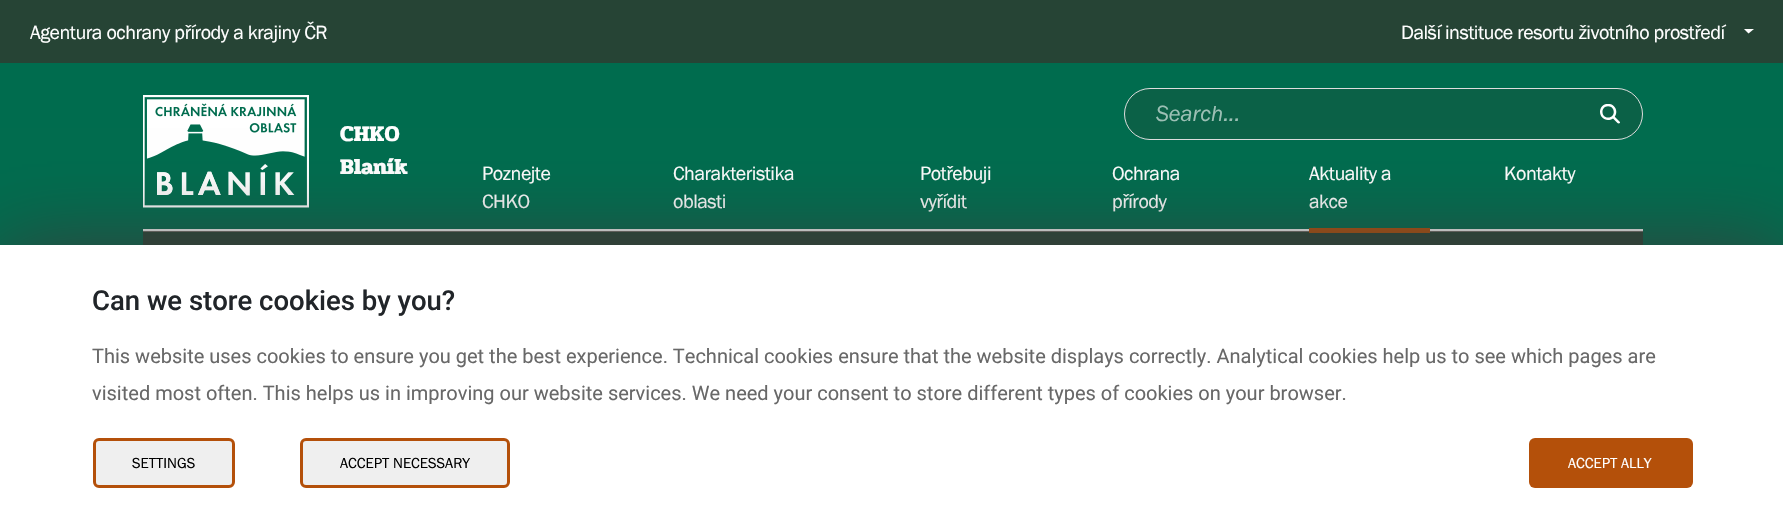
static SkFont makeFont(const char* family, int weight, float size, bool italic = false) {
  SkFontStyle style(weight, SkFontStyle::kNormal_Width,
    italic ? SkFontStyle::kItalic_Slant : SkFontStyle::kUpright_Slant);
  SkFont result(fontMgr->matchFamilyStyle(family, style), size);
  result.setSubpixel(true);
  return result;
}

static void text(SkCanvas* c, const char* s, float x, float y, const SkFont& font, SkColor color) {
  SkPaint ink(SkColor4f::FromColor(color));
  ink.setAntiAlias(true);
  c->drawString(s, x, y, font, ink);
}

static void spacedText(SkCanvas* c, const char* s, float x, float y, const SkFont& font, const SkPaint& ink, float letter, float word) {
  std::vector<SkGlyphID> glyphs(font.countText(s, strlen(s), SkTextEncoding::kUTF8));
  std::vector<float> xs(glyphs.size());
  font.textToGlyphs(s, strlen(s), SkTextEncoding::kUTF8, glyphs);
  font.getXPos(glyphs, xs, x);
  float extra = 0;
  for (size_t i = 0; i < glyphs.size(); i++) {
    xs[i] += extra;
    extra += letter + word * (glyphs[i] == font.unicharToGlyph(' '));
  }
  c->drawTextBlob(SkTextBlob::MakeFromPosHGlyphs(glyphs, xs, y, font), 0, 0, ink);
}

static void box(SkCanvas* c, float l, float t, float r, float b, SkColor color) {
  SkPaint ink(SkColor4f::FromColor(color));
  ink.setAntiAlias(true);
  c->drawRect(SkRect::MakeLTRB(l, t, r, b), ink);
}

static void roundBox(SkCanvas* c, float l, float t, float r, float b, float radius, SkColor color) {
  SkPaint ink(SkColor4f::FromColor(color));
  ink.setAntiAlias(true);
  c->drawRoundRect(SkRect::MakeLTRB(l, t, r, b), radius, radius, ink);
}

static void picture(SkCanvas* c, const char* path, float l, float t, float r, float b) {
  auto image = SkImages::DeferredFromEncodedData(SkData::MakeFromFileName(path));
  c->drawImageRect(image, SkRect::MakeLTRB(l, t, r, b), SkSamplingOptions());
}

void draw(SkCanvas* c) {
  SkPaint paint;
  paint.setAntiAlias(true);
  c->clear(0xff006c4e);
  box(c, 0, 0, 1783, 63, 0xff264435);
  SkFont face1 = makeFont("Franklin Gothic", 400, 20);
  paint.setColor(0xffffffff);
  spacedText(c, "Agentura ochrany přírody a krajiny ČR", 30, 39, face1, paint, -0.5f, 0);
  spacedText(c, "Další instituce resortu životního prostředí", 1401, 39, face1, paint, -0.5f, 0);
  c->drawPath(SkPathBuilder().moveTo(1744, 29).lineTo(1748.5f, 33.5f).lineTo(1754, 29).close().detach(), paint);
  box(c, 143, 229, 1643, 231, 0xffffffff);
  box(c, 143, 231, 1643, 232, 0xff72706a);
  picture(c, "img_01.png", 143, 95, 309, 208);
  SkFont face2 = makeFont("Pridi", 700, 22.5f);
  text(c, "CHKO", 340, 141, face2, 0xffffffff);
  text(c, "Blaník", 340, 174, face2, 0xffffffff);
  paint.setColor(0xff0b6147);
  c->drawRoundRect(SkRect::MakeLTRB(1124.5f, 88.5f, 1642.5f, 139.5f), 25.5f, 25.5f, paint);
  paint.setStyle(SkPaint::kStroke_Style);
  paint.setStrokeWidth(1);
  paint.setColor(0xffdddddd);
  c->drawRoundRect(SkRect::MakeLTRB(1124.5f, 88.5f, 1642.5f, 139.5f), 25.5f, 25.5f, paint);
  SkFont face3 = makeFont("Franklin Gothic", 400, 22.5f, true);
  text(c, "Search...", 1156, 121, face3, 0xff9dc0b5);
  picture(c, "img_02.png", 1600, 104, 1620, 124);
  paint.setStyle(SkPaint::kFill_Style);
  paint.setColor(0xffffffff);
  spacedText(c, "Poznejte", 482, 180, face1, paint, -0.5f, 0);
  spacedText(c, "CHKO", 482, 208, face1, paint, -0.5f, 0);
  spacedText(c, "Charakteristika", 673, 180, face1, paint, -0.5f, 0);
  spacedText(c, "oblasti", 673, 208, face1, paint, -0.5f, 0);
  spacedText(c, "Potřebuji", 920, 180, face1, paint, -0.5f, 0);
  spacedText(c, "vyřídit", 920, 208, face1, paint, -0.5f, 0);
  spacedText(c, "Ochrana", 1112, 180, face1, paint, -0.5f, 0);
  spacedText(c, "přírody", 1112, 208, face1, paint, -0.5f, 0);
  spacedText(c, "Aktuality a", 1309, 180, face1, paint, -0.5f, 0);
  spacedText(c, "akce", 1309, 208, face1, paint, -0.5f, 0);
  box(c, 143, 232, 1643, 245, 0xff264435);
  box(c, 1309, 228, 1430, 233, 0xffb4500a);
  spacedText(c, "Kontakty", 1504, 180, face1, paint, -0.5f, 0);
  paint.setColor(0xff3b3b3b);
  paint.setMaskFilter(SkMaskFilter::MakeBlur(kNormal_SkBlurStyle, 40));
  c->drawRect(SkRect::MakeLTRB(0, 248, 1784, 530), paint);
  paint.setMaskFilter(nullptr);
  box(c, 0, 245, 1783, 527, 0xffffffff);
  SkFont face4 = makeFont("Roboto", 500, 27.5f);
  text(c, "Can we store cookies by you?", 92, 310, face4, 0xff212529);
  SkFont face5 = makeFont("Roboto", 400, 20);
  text(c, "This website uses cookies to ensure you get the best experience. Technical cookies ensure that the website displays correctly. Analytical cookies help us to see which pages are", 92, 363, face5, 0xff686868);
  text(c, "visited most often. This helps us in improving our website services. We need your consent to store different types of cookies on your browser.", 92, 400, face5, 0xff686868);
  paint.setColor(0xffefefef);
  c->drawRoundRect(SkRect::MakeLTRB(94.5f, 439.5f, 233.5f, 486.5f), 4.5f, 4.5f, paint);
  paint.setStyle(SkPaint::kStroke_Style);
  paint.setStrokeWidth(3);
  paint.setColor(0xffb4500a);
  c->drawRoundRect(SkRect::MakeLTRB(94.5f, 439.5f, 233.5f, 486.5f), 4.5f, 4.5f, paint);
  SkFont face6 = makeFont("Franklin Gothic", 400, 15);
  text(c, "SETTINGS", 132, 468, face6, 0xff000000);
  paint.setStyle(SkPaint::kFill_Style);
  paint.setColor(0xffefefef);
  c->drawRoundRect(SkRect::MakeLTRB(301.5f, 439.5f, 508.5f, 486.5f), 4.5f, 4.5f, paint);
  paint.setStyle(SkPaint::kStroke_Style);
  paint.setColor(0xffb4500a);
  c->drawRoundRect(SkRect::MakeLTRB(301.5f, 439.5f, 508.5f, 486.5f), 4.5f, 4.5f, paint);
  text(c, "ACCEPT NECESSARY", 340, 468, face6, 0xff000000);
  roundBox(c, 1529, 438, 1693, 488, 6, 0xffb4500a);
  text(c, "ACCEPT ALLY", 1568, 468, face6, 0xffffffff);
}
